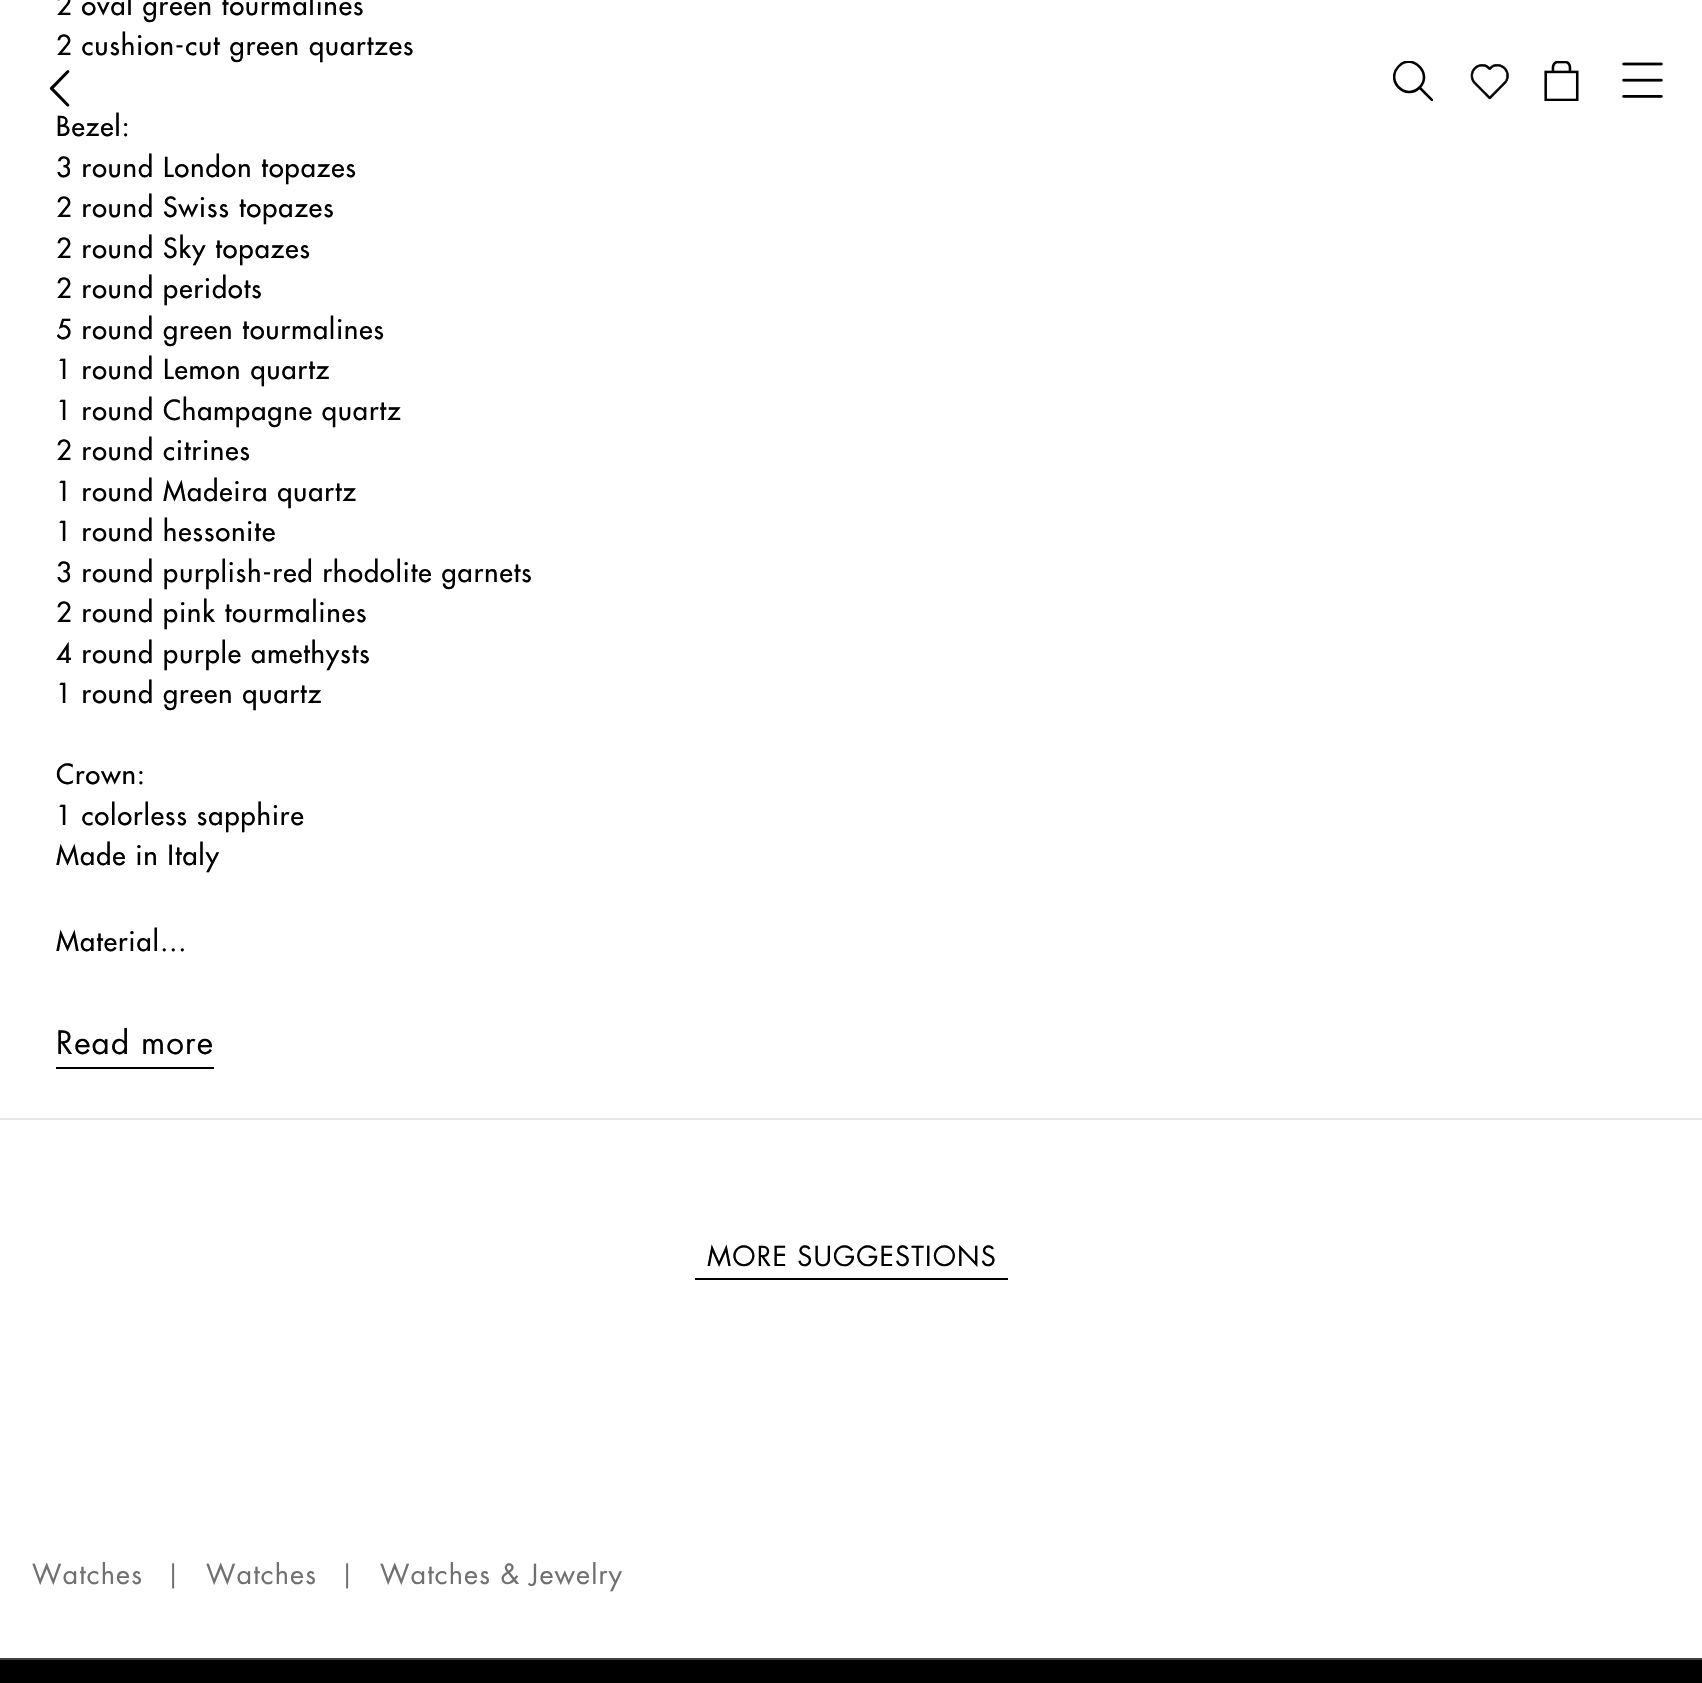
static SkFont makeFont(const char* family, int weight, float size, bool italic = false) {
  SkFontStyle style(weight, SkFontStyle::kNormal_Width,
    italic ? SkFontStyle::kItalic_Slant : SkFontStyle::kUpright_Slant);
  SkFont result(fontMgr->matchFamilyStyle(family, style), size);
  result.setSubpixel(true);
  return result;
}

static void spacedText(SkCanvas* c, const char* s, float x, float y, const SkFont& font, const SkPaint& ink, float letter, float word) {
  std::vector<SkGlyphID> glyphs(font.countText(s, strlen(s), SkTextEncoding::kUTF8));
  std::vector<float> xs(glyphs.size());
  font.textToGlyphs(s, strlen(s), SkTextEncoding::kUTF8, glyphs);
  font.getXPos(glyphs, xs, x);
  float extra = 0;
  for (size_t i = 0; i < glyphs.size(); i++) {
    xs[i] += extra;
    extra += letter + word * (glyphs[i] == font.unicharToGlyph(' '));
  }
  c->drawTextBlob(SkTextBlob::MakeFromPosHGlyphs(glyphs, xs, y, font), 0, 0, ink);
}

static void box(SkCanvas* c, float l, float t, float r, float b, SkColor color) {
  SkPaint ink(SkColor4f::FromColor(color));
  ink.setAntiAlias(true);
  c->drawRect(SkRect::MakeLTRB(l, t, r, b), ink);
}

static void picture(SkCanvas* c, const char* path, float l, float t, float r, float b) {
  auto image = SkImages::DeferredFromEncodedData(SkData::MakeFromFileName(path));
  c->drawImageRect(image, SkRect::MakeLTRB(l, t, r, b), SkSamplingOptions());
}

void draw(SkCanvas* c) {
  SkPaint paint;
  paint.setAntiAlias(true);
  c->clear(0xffffffff);
  box(c, 0, 1118, 1702, 1120, 0xffe5e5e5);
  SkFont face1 = makeFont("Futura", 500, 27);
  paint.setColor(0xff000000);
  spacedText(c, "2 oval green tourmalines", 56, 15, face1, paint, 1.1f, 0);
  spacedText(c, "2 cushion-cut green quartzes", 56, 55, face1, paint, 1.1f, 0);
  spacedText(c, "Bezel:", 56, 136, face1, paint, 1.1f, 0);
  spacedText(c, "3 round London topazes", 56, 177, face1, paint, 1.1f, 0);
  spacedText(c, "2 round Swiss topazes", 56, 217, face1, paint, 1.1f, 0);
  spacedText(c, "2 round Sky topazes", 56, 258, face1, paint, 1.1f, 0);
  spacedText(c, "2 round peridots", 56, 298, face1, paint, 1.1f, 0);
  spacedText(c, "5 round green tourmalines", 56, 339, face1, paint, 1.1f, 0);
  spacedText(c, "1 round Lemon quartz", 56, 379, face1, paint, 1.1f, 0);
  spacedText(c, "1 round Champagne quartz", 56, 420, face1, paint, 1.1f, 0);
  spacedText(c, "2 round citrines", 56, 460, face1, paint, 1.1f, 0);
  spacedText(c, "1 round Madeira quartz", 56, 501, face1, paint, 1.1f, 0);
  spacedText(c, "1 round hessonite", 56, 541, face1, paint, 1.1f, 0);
  spacedText(c, "3 round purplish-red rhodolite garnets", 56, 582, face1, paint, 1.1f, 0);
  spacedText(c, "2 round pink tourmalines", 56, 622, face1, paint, 1.1f, 0);
  spacedText(c, "4 round purple amethysts", 56, 663, face1, paint, 1.1f, 0);
  spacedText(c, "1 round green quartz", 56, 703, face1, paint, 1.1f, 0);
  spacedText(c, "Crown:", 56, 784, face1, paint, 1.1f, 0);
  spacedText(c, "1 colorless sapphire", 56, 825, face1, paint, 1.1f, 0);
  spacedText(c, "Made in Italy", 56, 865, face1, paint, 1.1f, 0);
  spacedText(c, "Material…", 56, 951, face1, paint, 1.1f, 0);
  SkFont face2 = makeFont("Futura", 400, 31.5f);
  spacedText(c, "Read more", 56, 1054, face2, paint, 1.1f, 0);
  box(c, 56, 1067, 214, 1069, 0xff000000);
  picture(c, "img_01.png", 49, 70, 70, 107);
  SkFont face3 = makeFont("Futura", 400, 27);
  spacedText(c, "MORE SUGGESTIONS", 707, 1266, face3, paint, 1.1f, 0);
  box(c, 695, 1278, 1008, 1280, 0xff000000);
  c->save();
  c->clipRect(SkRect::MakeLTRB(32, 1562, 142, 1593));
  paint.setColor(0xff707070);
  spacedText(c, "Watches", 32, 1584, face3, paint, 1.1f, 0);
  c->restore();
  SkFont face4 = makeFont("Futura", 400, 25);
  spacedText(c, "|", 166, 1583, face4, paint, 1.1f, 0);
  c->save();
  c->clipRect(SkRect::MakeLTRB(205, 1562, 317, 1593));
  spacedText(c, "Watches", 206, 1584, face3, paint, 1.1f, 0);
  c->restore();
  spacedText(c, "|", 340, 1583, face4, paint, 1.1f, 0);
  c->save();
  c->clipRect(SkRect::MakeLTRB(380, 1562, 623, 1593));
  spacedText(c, "Watches & Jewelry", 380, 1584, face3, paint, 1.1f, 0);
  c->restore();
  c->save();
  c->clipRect(SkRect::MakeLTRB(1393, 61, 1433, 101));
  paint.setStyle(SkPaint::kStroke_Style);
  paint.setStrokeWidth(2.6f);
  paint.setColor(0xff000000);
  c->drawPath(SkPathBuilder().moveTo(1420, 88).lineTo(1433, 101).moveTo(1419.5f, 87.5f).cubicTo(1433.5f, 73.5f, 1411.5f, 52, 1398.5f, 66.5f).cubicTo(1385, 81, 1406, 101, 1419.5f, 87.5f).close().detach(), paint);
  c->restore();
  picture(c, "img_02.png", 1470, 64, 1509, 100);
  picture(c, "img_03.png", 1544, 61, 1579, 101);
  picture(c, "img_04.png", 1622, 62, 1663, 98);
  box(c, 0, 1660, 1702, 1683, 0xff000000);
  box(c, 0, 1658, 1702, 1660, 0xff424242);
}
